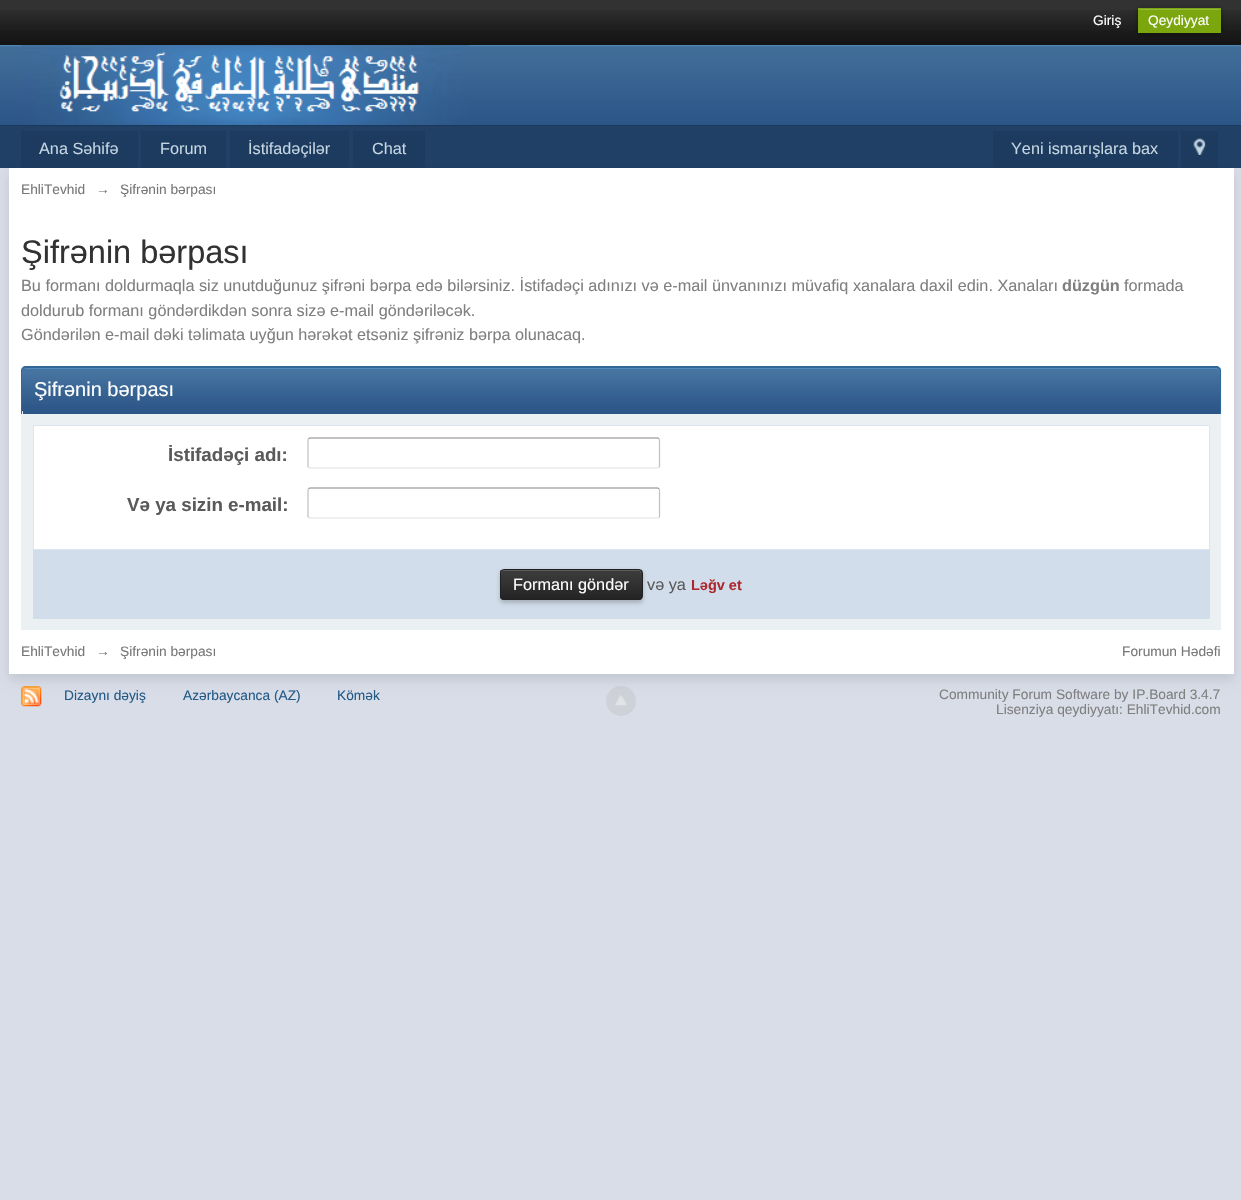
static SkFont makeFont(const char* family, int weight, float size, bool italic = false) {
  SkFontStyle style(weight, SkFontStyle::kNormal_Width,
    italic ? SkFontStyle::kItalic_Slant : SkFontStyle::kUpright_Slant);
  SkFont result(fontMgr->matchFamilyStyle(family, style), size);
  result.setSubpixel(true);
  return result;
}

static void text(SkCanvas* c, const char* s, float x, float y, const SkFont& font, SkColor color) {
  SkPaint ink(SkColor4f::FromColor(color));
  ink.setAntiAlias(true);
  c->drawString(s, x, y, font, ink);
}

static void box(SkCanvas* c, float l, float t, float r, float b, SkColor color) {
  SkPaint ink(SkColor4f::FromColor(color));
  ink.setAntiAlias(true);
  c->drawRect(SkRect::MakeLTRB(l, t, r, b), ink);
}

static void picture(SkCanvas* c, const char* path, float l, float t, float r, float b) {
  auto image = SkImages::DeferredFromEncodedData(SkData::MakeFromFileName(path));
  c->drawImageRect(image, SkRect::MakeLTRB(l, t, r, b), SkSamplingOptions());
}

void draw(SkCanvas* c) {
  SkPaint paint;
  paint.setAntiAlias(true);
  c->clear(0xffd8dde8);
  box(c, 0, 0, 1241, 10, 0xff323232);
  picture(c, "img_01.png", 0, 10, 1241, 45);
  SkFont face1 = makeFont("Liberation Sans", 400, 13.75f);
  text(c, "Giriş", 1093, 25, face1, 0xffffffff);
  paint.setColor(0x66000000);
  paint.setMaskFilter(SkMaskFilter::MakeBlur(kNormal_SkBlurStyle, 2.5f));
  c->drawRect(SkRect::MakeLTRB(1138, 9, 1221, 34), paint);
  paint.setMaskFilter(nullptr);
  box(c, 1138, 8, 1221, 33, 0xff7ba60d);
  box(c, 1139, 9, 1220, 10, 0xff95b83d);
  text(c, "Qeydiyyat", 1148, 25, face1, 0xffffffff);
  picture(c, "img_02.png", 0, 45, 1241, 125);
  box(c, 0, 125, 1241, 126, 0xff1b3759);
  picture(c, "img_03.png", 21, 45, 469, 125);
  box(c, 0, 126, 1241, 168, 0xff204066);
  paint.setColor(0x1a000000);
  paint.setMaskFilter(SkMaskFilter::MakeBlur(kNormal_SkBlurStyle, 5.5f));
  c->drawRect(SkRect::MakeLTRB(9, 174, 1234, 680), paint);
  paint.setMaskFilter(nullptr);
  box(c, 21, 131, 138, 168, 0xff1c3b5f);
  SkFont face2 = makeFont("Liberation Sans", 400, 16.25f);
  text(c, "Ana Səhifə", 39, 154, face2, 0xffc5d5e2);
  box(c, 141, 131, 226, 168, 0xff1c3b5f);
  text(c, "Forum", 160, 154, face2, 0xffc5d5e2);
  box(c, 230, 131, 349, 168, 0xff1c3b5f);
  text(c, "İstifadəçilər", 248, 154, face2, 0xffc5d5e2);
  box(c, 353, 131, 425, 168, 0xff1c3b5f);
  text(c, "Chat", 372, 154, face2, 0xffc5d5e2);
  box(c, 993, 131, 1178, 168, 0xff1c3b5f);
  text(c, "Yeni ismarışlara bax", 1011, 154, face2, 0xffc5d5e2);
  box(c, 1181, 131, 1218, 168, 0xff1c3b5f);
  picture(c, "img_04.png", 1193, 138, 1206, 155);
  box(c, 9, 168, 1234, 674, 0xffffffff);
  text(c, "EhliTevhid", 21, 194, face1, 0xff777777);
  text(c, "→", 96, 194, face1, 0xff777777);
  text(c, "Şifrənin bərpası", 120, 194, face1, 0xff777777);
  SkFont face3 = makeFont("Liberation Sans", 400, 32.5f);
  text(c, "Şifrənin bərpası", 21, 263, face3, 0xff323232);
  text(c, "Bu formanı doldurmaqla siz unutduğunuz şifrəni bərpa edə bilərsiniz. İstifadəçi adınızı və e-mail ünvanınızı müvafiq xanalara daxil edin. Xanaları", 21, 291, face2, 0xff7f7f7f);
  SkFont face4 = makeFont("Liberation Sans", 700, 16.25f);
  text(c, "düzgün", 1062, 291, face4, 0xff7f7f7f);
  text(c, "formada", 1124, 291, face2, 0xff7f7f7f);
  text(c, "doldurub formanı göndərdikdən sonra sizə e-mail göndəriləcək.", 21, 316, face2, 0xff7f7f7f);
  text(c, "Göndərilən e-mail dəki təlimata uyğun hərəkət etsəniz şifrəniz bərpa olunacaq.", 21, 340, face2, 0xff7f7f7f);
  box(c, 23, 411, 1220, 414, 0xff2c5687);
  picture(c, "img_05.png", 21, 367, 1222, 412);
  paint.setColor(0xff528cbc);
  c->drawPath(SkPathBuilder().moveTo(26, 369).lineTo(1216, 369).cubicTo(1218, 369, 1220, 370, 1220, 372).cubicTo(1220, 370, 1218, 368, 1216, 368).lineTo(27, 368).cubicTo(26, 368, 25, 369, 24, 369).close().detach(), paint);
  paint.setColor(0xff316897);
  c->drawPath(SkPathBuilder(SkPathFillType::kEvenOdd).moveTo(26, 366).lineTo(1216, 366).cubicTo(1219, 366, 1221, 368, 1221, 371).lineTo(1221, 414).lineTo(21, 414).lineTo(21, 371).cubicTo(21, 368, 23, 366, 26, 366).close().moveTo(26, 368).lineTo(1216, 368).cubicTo(1218, 368, 1220, 369, 1220, 371).lineTo(1220, 414).lineTo(22, 414).lineTo(22, 371).cubicTo(22, 369, 24, 368, 26, 368).close().detach(), paint);
  SkFont face5 = makeFont("Liberation Sans", 400, 20);
  text(c, "Şifrənin bərpası", 34, 396, face5, 0xffffffff);
  box(c, 21, 414, 1221, 630, 0xffebf0f3);
  paint.setColor(0xffffffff);
  c->drawRect(SkRect::MakeLTRB(33.5f, 425.5f, 1209.5f, 549.5f), paint);
  paint.setStyle(SkPaint::kStroke_Style);
  paint.setStrokeWidth(1);
  paint.setColor(0xffdbe4ef);
  c->drawRect(SkRect::MakeLTRB(33.5f, 425.5f, 1209.5f, 549.5f), paint);
  SkFont face6 = makeFont("Liberation Sans", 700, 18.75f);
  text(c, "İstifadəçi adı:", 168, 461, face6, 0xff5a5a5a);
  paint.setStrokeWidth(1.2f);
  paint.setColor(0xff848484);
  c->drawPath(SkPathBuilder().moveTo(308.5f, 438.5f).lineTo(310, 438).lineTo(657.5f, 438).lineTo(659, 438.5f).detach(), paint);
  paint.setColor(0xffc1c1c1);
  c->drawPath(SkPathBuilder().moveTo(659, 438.5f).lineTo(659.5f, 440).lineTo(659.5f, 466.5f).lineTo(659, 467.5f).detach(), paint);
  paint.setColor(0xffe1e1e1);
  c->drawPath(SkPathBuilder().moveTo(659, 467.5f).lineTo(657.5f, 468).lineTo(310, 468).lineTo(308.5f, 467.5f).detach(), paint);
  paint.setColor(0xffc1c1c1);
  c->drawPath(SkPathBuilder().moveTo(308.5f, 467.5f).lineTo(308, 466.5f).lineTo(308, 440).lineTo(308.5f, 438.5f).detach(), paint);
  text(c, "Və ya sizin e-mail:", 127, 511, face6, 0xff5a5a5a);
  paint.setColor(0xff848484);
  c->drawPath(SkPathBuilder().moveTo(308.5f, 488.5f).lineTo(310, 488).lineTo(657.5f, 488).lineTo(659, 488.5f).detach(), paint);
  paint.setColor(0xffc1c1c1);
  c->drawPath(SkPathBuilder().moveTo(659, 488.5f).lineTo(659.5f, 490).lineTo(659.5f, 516.5f).lineTo(659, 517.5f).detach(), paint);
  paint.setColor(0xffe1e1e1);
  c->drawPath(SkPathBuilder().moveTo(659, 517.5f).lineTo(657.5f, 518).lineTo(310, 518).lineTo(308.5f, 517.5f).detach(), paint);
  paint.setColor(0xffc1c1c1);
  c->drawPath(SkPathBuilder().moveTo(308.5f, 517.5f).lineTo(308, 516.5f).lineTo(308, 490).lineTo(308.5f, 488.5f).detach(), paint);
  box(c, 33, 550, 1210, 619, 0xffd1ddea);
  paint.setStyle(SkPaint::kFill_Style);
  paint.setColor(0x33000000);
  paint.setMaskFilter(SkMaskFilter::MakeBlur(kNormal_SkBlurStyle, 2));
  c->drawRoundRect(SkRect::MakeLTRB(500, 571, 643, 603), 4, 4, paint);
  paint.setMaskFilter(nullptr);
  picture(c, "img_06.png", 500, 570, 643, 600);
  paint.setColor(0xff5c5c5c);
  c->drawPath(SkPathBuilder().moveTo(504, 571).lineTo(639, 571).cubicTo(640, 571, 641, 572, 641, 574).lineTo(641, 572).cubicTo(641, 571, 640, 570, 638, 570).lineTo(504, 570).cubicTo(502, 570, 501, 571, 501, 572).lineTo(501, 574).cubicTo(501, 572, 502, 571, 504, 571).close().detach(), paint);
  paint.setStyle(SkPaint::kStroke_Style);
  paint.setStrokeWidth(1);
  paint.setColor(0xff212121);
  c->drawRoundRect(SkRect::MakeLTRB(500.5f, 569.5f, 642.5f, 599.5f), 3.5f, 3.5f, paint);
  text(c, "Formanı göndər", 513, 590, face2, 0xffffffff);
  text(c, "və ya", 647, 590, face2, 0xff5a5a5a);
  SkFont face7 = makeFont("Liberation Sans", 700, 14.5f);
  text(c, "Ləğv et", 691, 590, face7, 0xffad2930);
  text(c, "EhliTevhid", 21, 656, face1, 0xff777777);
  text(c, "→", 96, 656, face1, 0xff777777);
  text(c, "Şifrənin bərpası", 120, 656, face1, 0xff777777);
  text(c, "Forumun Hədəfi", 1122, 656, face1, 0xff777777);
  picture(c, "img_07.png", 21, 686, 42, 707);
  text(c, "Dizaynı dəyiş", 64, 700, face1, 0xff225985);
  text(c, "Azərbaycanca (AZ)", 183, 700, face1, 0xff225985);
  text(c, "Kömək", 337, 700, face1, 0xff225985);
  paint.setStyle(SkPaint::kFill_Style);
  paint.setColor(0x66bdbdbd);
  c->drawCircle(621, 701, 15, paint);
  picture(c, "img_08.png", 615, 695, 627, 706);
  text(c, "Community Forum Software by IP.Board 3.4.7", 939, 699, face1, 0xff7f7f7f);
  text(c, "Lisenziya qeydiyyatı: EhliTevhid.com", 996, 714, face1, 0xff7f7f7f);
}
